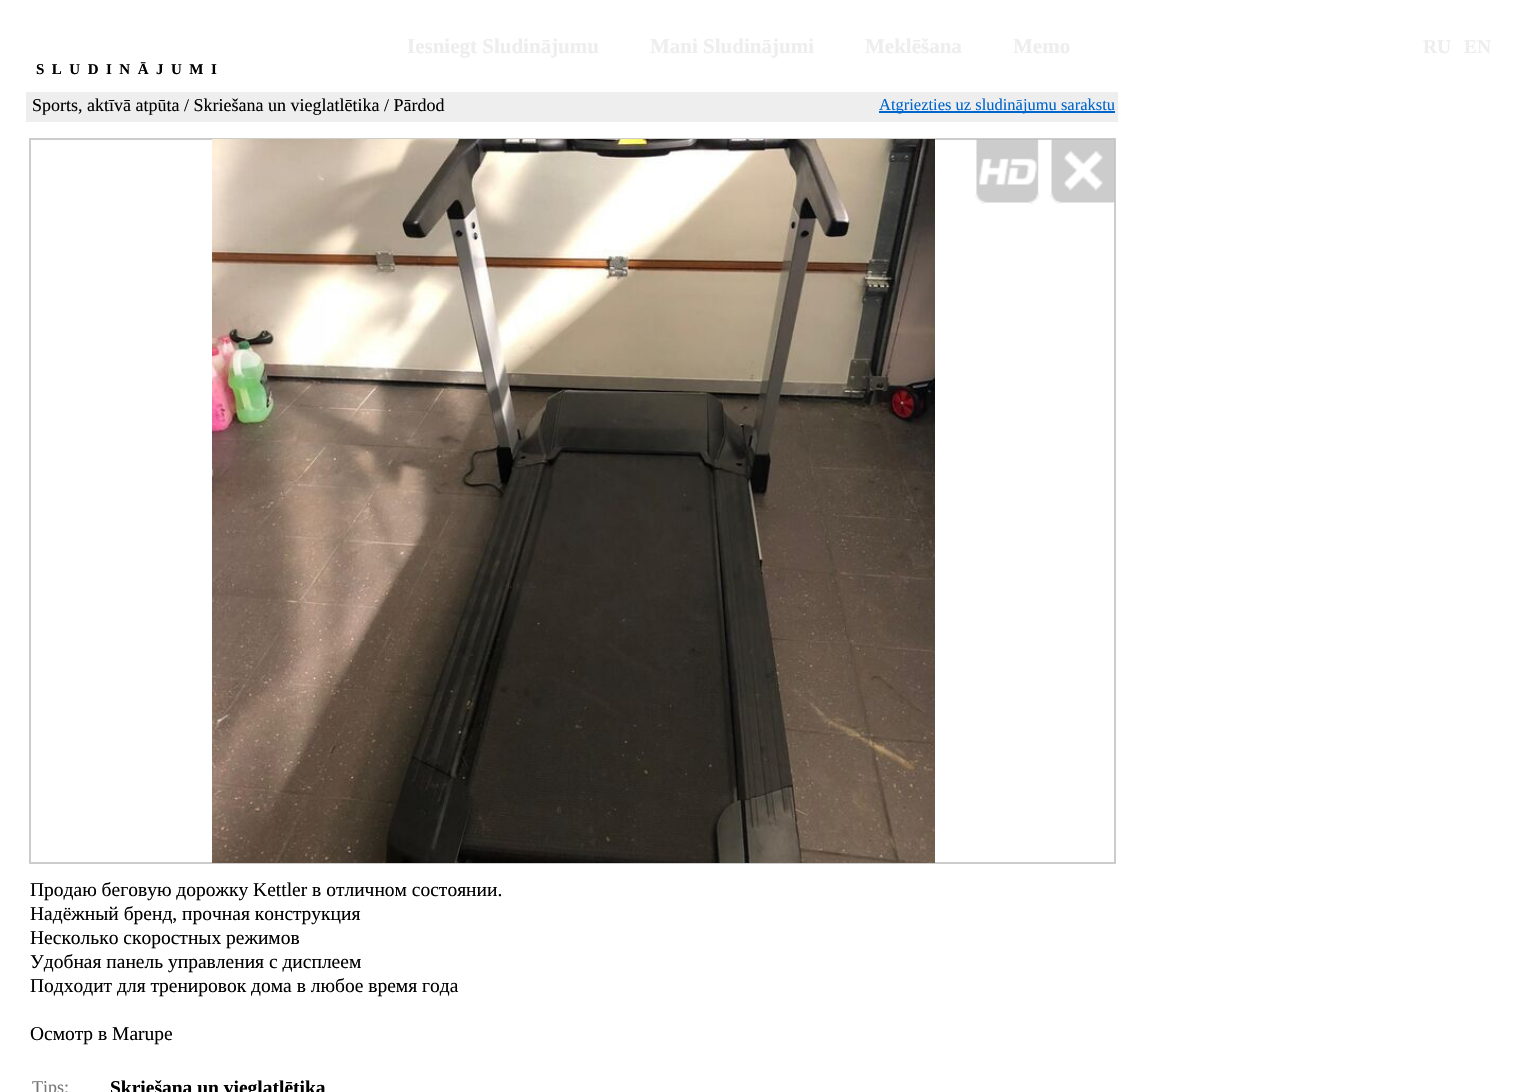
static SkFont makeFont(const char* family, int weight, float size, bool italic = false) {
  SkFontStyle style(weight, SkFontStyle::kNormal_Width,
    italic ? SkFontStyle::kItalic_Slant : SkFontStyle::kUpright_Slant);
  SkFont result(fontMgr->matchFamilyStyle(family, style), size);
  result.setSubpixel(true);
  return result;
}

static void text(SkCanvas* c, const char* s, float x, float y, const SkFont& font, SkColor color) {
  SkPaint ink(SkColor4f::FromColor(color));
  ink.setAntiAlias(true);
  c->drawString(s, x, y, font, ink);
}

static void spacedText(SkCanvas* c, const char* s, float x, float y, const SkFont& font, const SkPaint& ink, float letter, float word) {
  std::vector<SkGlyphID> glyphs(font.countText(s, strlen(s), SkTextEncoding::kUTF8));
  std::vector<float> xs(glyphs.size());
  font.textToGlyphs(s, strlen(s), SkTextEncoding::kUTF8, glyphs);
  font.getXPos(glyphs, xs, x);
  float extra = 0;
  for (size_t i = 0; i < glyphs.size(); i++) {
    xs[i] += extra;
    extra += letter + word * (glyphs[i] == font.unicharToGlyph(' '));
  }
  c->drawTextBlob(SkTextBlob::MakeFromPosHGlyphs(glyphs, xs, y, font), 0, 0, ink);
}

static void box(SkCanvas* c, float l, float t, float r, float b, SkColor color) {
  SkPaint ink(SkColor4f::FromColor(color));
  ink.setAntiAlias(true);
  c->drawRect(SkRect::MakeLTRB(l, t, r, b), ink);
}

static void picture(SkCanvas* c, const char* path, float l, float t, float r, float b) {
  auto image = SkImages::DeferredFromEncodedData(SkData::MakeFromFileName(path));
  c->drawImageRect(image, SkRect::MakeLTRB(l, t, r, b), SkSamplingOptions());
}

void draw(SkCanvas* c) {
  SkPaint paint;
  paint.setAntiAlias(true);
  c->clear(0xffffffff);
  SkFont face1 = makeFont("Liberation Serif", 700, 21);
  text(c, "Iesniegt Sludinājumu", 407, 53, face1, 0xffeeeeee);
  text(c, "Mani Sludinājumi", 650, 53, face1, 0xffeeeeee);
  text(c, "Meklēšana", 865, 53, face1, 0xffeeeeee);
  text(c, "Memo", 1013, 53, face1, 0xffeeeeee);
  SkFont face2 = makeFont("Liberation Serif", 700, 19.5f);
  text(c, "RU", 1423, 53, face2, 0xffeeeeee);
  text(c, "EN", 1464, 53, face2, 0xffeeeeee);
  SkFont face3 = makeFont("Liberation Serif", 700, 15);
  paint.setColor(0xff000000);
  spacedText(c, "SLUDINĀJUMI", 36, 74, face3, paint, 7.5f, 0);
  box(c, 26, 92, 1118, 122, 0xffeeeeee);
  SkFont face4 = makeFont("Liberation Serif", 400, 18);
  text(c, "Sports, aktīvā atpūta / Skriešana un vieglatlētika / Pārdod", 32, 111, face4, 0xff000000);
  box(c, 879, 111, 1115, 113, 0xff0066cc);
  SkFont face5 = makeFont("Liberation Serif", 400, 16.5f);
  text(c, "Atgriezties uz sludinājumu sarakstu", 879, 110, face5, 0xff0066cc);
  paint.setStyle(SkPaint::kStroke_Style);
  paint.setStrokeWidth(2);
  paint.setColor(0xffcccccc);
  c->drawRect(SkRect::MakeLTRB(30, 139, 1115, 863), paint);
  picture(c, "img_01.png", 212, 139, 935, 863);
  picture(c, "img_02.png", 975, 139, 1040, 204);
  picture(c, "img_03.png", 1050, 139, 1115, 204);
  SkFont face6 = makeFont("Liberation Serif", 400, 19.5f);
  text(c, "Продаю беговую дорожку Kettler в отличном состоянии.", 30, 896, face6, 0xff000000);
  text(c, "Надёжный бренд, прочная конструкция", 30, 920, face6, 0xff000000);
  text(c, "Несколько скоростных режимов", 30, 944, face6, 0xff000000);
  text(c, "Удобная панель управления с дисплеем", 30, 968, face6, 0xff000000);
  text(c, "Подходит для тренировок дома в любое время года", 30, 992, face6, 0xff000000);
  text(c, "Осмотр в Marupe", 30, 1040, face6, 0xff000000);
  text(c, "Tips:", 32, 1093, face4, 0xff777777);
  text(c, "Skriešana un vieglatlētika", 110, 1094, face2, 0xff000000);
}
